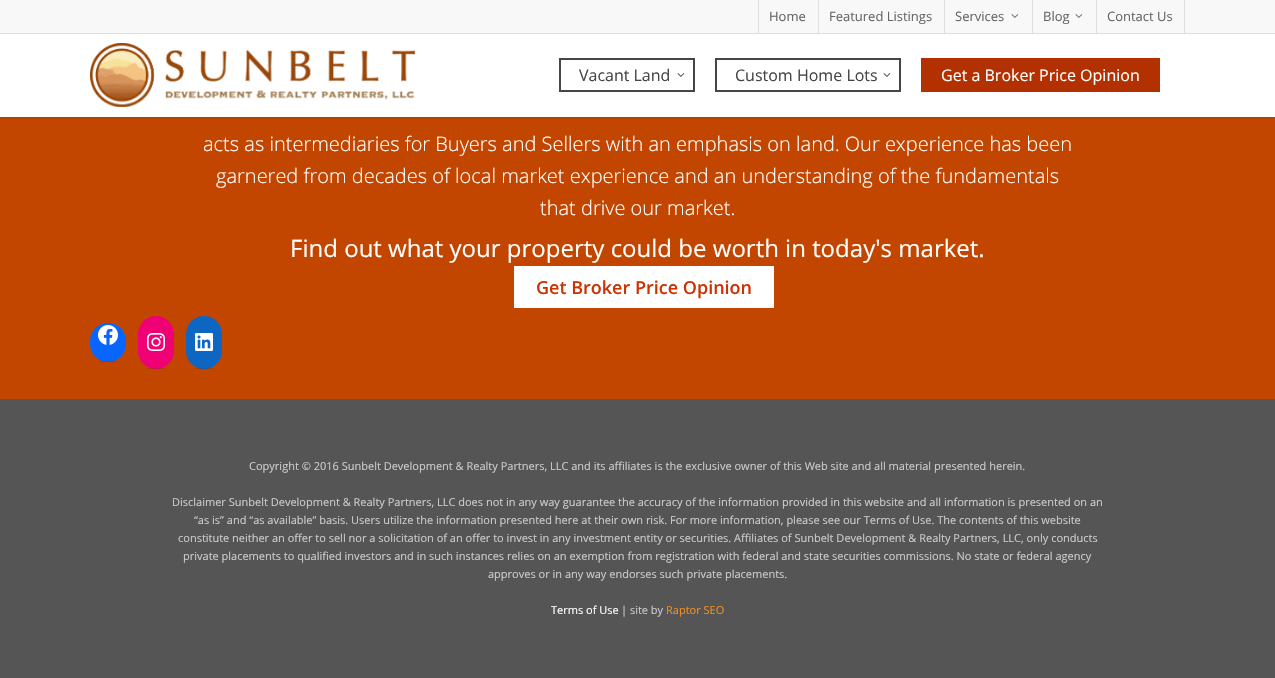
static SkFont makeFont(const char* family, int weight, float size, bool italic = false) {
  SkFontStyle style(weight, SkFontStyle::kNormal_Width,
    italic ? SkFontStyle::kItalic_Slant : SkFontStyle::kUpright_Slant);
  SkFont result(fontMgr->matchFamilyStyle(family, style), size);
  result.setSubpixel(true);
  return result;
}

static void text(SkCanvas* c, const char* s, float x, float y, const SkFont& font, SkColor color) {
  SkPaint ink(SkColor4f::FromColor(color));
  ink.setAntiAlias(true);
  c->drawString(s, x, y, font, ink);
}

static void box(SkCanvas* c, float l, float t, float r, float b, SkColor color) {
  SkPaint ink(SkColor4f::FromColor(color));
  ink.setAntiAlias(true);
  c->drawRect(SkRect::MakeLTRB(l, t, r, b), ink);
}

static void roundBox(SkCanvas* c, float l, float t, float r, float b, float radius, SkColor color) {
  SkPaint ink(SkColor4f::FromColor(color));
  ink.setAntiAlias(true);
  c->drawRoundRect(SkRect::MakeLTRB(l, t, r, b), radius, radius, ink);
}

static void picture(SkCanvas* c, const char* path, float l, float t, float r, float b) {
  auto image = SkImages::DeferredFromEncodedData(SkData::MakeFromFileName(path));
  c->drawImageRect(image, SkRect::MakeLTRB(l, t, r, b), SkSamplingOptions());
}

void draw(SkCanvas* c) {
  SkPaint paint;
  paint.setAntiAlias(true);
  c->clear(0xffc24600);
  paint.setColor(0x38000000);
  paint.setMaskFilter(SkMaskFilter::MakeBlur(kNormal_SkBlurStyle, 1.5f));
  c->drawRect(SkRect::MakeLTRB(0, 33, 1275, 117), paint);
  paint.setMaskFilter(nullptr);
  box(c, 0, 0, 1275, 33, 0xfff8f8f8);
  box(c, 0, 33, 1275, 34, 0xffdfdfdf);
  box(c, 758, 0, 759, 33, 0xffdfdfdf);
  SkFont face1 = makeFont("Open Sans", 400, 13);
  text(c, "Home", 769, 21, face1, 0xff666666);
  box(c, 818, 0, 819, 33, 0xffdfdfdf);
  text(c, "Featured Listings", 829, 21, face1, 0xff666666);
  box(c, 944, 0, 945, 33, 0xffdfdfdf);
  text(c, "Services", 955, 21, face1, 0xff666666);
  picture(c, "img_01.png", 1011, 14, 1019, 18);
  box(c, 1032, 0, 1033, 33, 0xffdfdfdf);
  text(c, "Blog", 1043, 21, face1, 0xff666666);
  picture(c, "img_01.png", 1075, 14, 1083, 18);
  box(c, 1184, 0, 1185, 33, 0xffdfdfdf);
  box(c, 1096, 0, 1097, 33, 0xffdfdfdf);
  text(c, "Contact Us", 1107, 21, face1, 0xff666666);
  box(c, 0, 34, 1275, 117, 0xffffffff);
  picture(c, "img_02.png", 90, 43, 416, 107);
  paint.setStyle(SkPaint::kStroke_Style);
  paint.setStrokeWidth(2);
  paint.setColor(0xff464646);
  c->drawRect(SkRect::MakeLTRB(560, 59, 694, 91), paint);
  SkFont face2 = makeFont("Open Sans", 400, 16);
  text(c, "Vacant Land", 579, 81, face2, 0xff464646);
  picture(c, "img_03.png", 677, 73, 685, 77);
  c->drawRect(SkRect::MakeLTRB(716, 59, 900, 91), paint);
  text(c, "Custom Home Lots", 735, 81, face2, 0xff464646);
  picture(c, "img_03.png", 883, 73, 891, 77);
  box(c, 921, 58, 1160, 92, 0xffb33101);
  text(c, "Get a Broker Price Opinion", 941, 81, face2, 0xffffffff);
  SkFont face3 = makeFont("Open Sans", 300, 20);
  text(c, "acts as intermediaries for Buyers and Sellers with an emphasis on land. Our experience has been", 203, 151, face3, 0xffffffff);
  text(c, "garnered from decades of local market experience and an understanding of the fundamentals", 216, 183, face3, 0xffffffff);
  text(c, "that drive our market.", 540, 215, face3, 0xffffffff);
  SkFont face4 = makeFont("Open Sans", 400, 24);
  text(c, "Find out what your property could be worth in today's market.", 290, 257, face4, 0xffffffff);
  box(c, 514, 266, 774, 308, 0xffffffff);
  SkFont face5 = makeFont("Open Sans", 600, 18);
  text(c, "Get Broker Price Opinion", 536, 294, face5, 0xffcc3300);
  roundBox(c, 90, 323, 126, 362, 18, 0xff0866ff);
  box(c, 99, 361, 117, 362, 0x1a000000);
  picture(c, "img_04.png", 98, 325, 118, 345);
  roundBox(c, 138, 316, 174, 369, 18, 0xfff00075);
  box(c, 147, 368, 165, 369, 0x1a000000);
  picture(c, "img_05.png", 147, 333, 165, 351);
  roundBox(c, 186, 316, 222, 369, 18, 0xff0d66c2);
  box(c, 195, 368, 213, 369, 0x1a000000);
  picture(c, "img_06.png", 195, 333, 213, 351);
  box(c, 0, 399, 1275, 678, 0xff555555);
  SkFont face6 = makeFont("Open Sans", 400, 11);
  text(c, "Copyright © 2016 Sunbelt Development & Realty Partners, LLC and its affiliates is the exclusive owner of this Web site and all material presented herein.", 249, 470, face6, 0xffcccccc);
  text(c, "Disclaimer Sunbelt Development & Realty Partners, LLC does not in any way guarantee the accuracy of the information provided in this website and all information is presented on an", 172, 506, face6, 0xffcccccc);
  text(c, "“as is” and “as available” basis. Users utilize the information presented here at their own risk. For more information, please see our Terms of Use. The contents of this website", 194, 524, face6, 0xffcccccc);
  text(c, "constitute neither an offer to sell nor a solicitation of an offer to invest in any investment entity or securities. Affiliates of Sunbelt Development & Realty Partners, LLC, only conducts", 178, 542, face6, 0xffcccccc);
  text(c, "private placements to qualified investors and in such instances relies on an exemption from registration with federal and state securities commissions. No state or federal agency", 183, 560, face6, 0xffcccccc);
  text(c, "approves or in any way endorses such private placements.", 488, 578, face6, 0xffcccccc);
  text(c, "Terms of Use", 551, 614, face6, 0xffffffff);
  text(c, "| site by", 621, 614, face6, 0xffcccccc);
  text(c, "Raptor SEO", 666, 614, face6, 0xfff19022);
}
